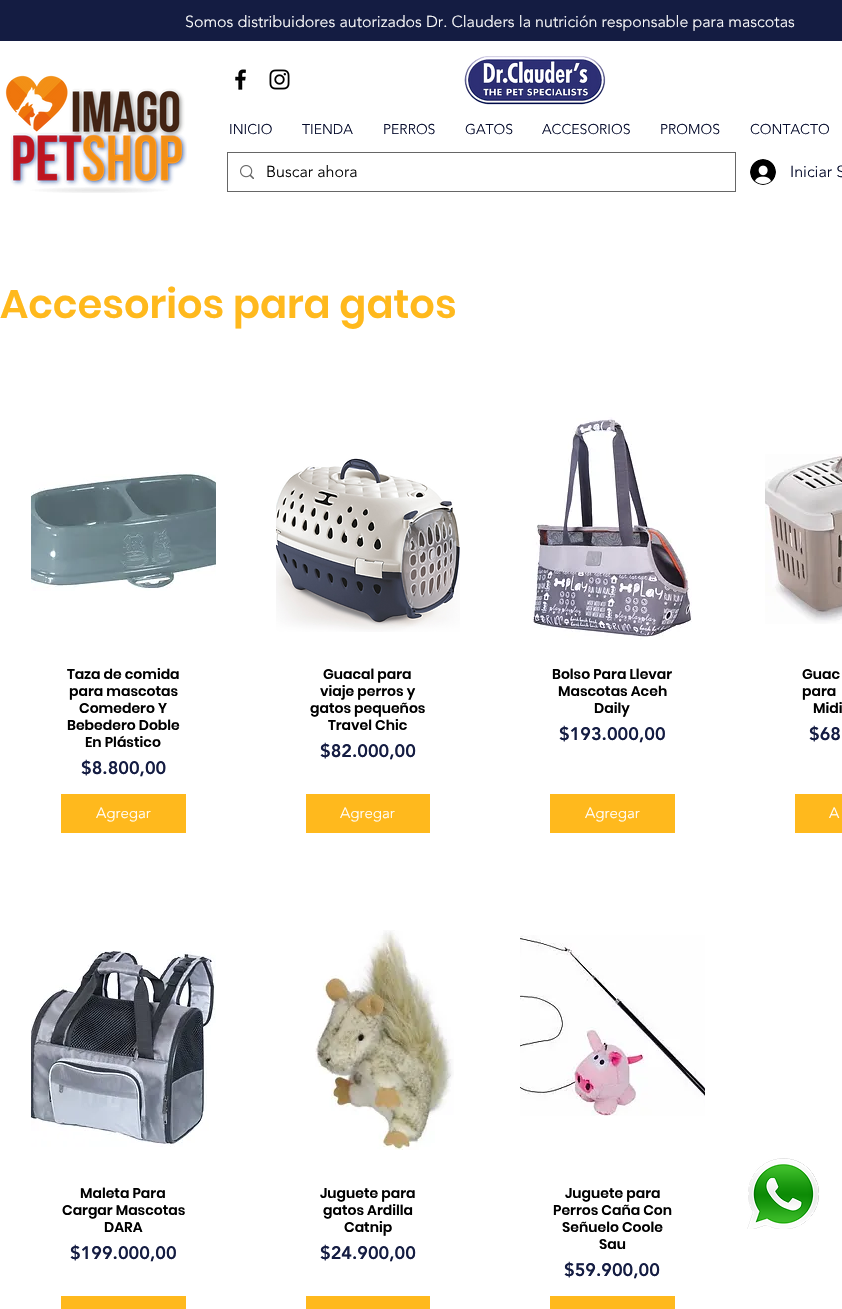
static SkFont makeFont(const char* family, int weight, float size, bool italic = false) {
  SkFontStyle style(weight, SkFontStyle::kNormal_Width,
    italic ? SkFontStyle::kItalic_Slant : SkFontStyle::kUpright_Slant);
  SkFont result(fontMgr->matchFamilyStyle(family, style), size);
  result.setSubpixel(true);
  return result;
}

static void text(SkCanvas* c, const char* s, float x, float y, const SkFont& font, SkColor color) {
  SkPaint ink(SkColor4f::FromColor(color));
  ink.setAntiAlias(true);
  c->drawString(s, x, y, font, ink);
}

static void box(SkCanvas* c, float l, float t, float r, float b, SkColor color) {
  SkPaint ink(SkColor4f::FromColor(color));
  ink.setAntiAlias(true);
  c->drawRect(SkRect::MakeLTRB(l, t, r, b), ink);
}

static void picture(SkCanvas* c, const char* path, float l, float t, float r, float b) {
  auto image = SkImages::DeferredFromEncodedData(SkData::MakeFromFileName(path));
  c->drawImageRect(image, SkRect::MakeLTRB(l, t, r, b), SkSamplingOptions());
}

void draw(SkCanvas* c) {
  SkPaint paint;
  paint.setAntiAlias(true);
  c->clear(0xffffffff);
  box(c, 0, 0, 842, 41, 0xff141c42);
  SkFont face1 = makeFont("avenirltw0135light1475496", 300, 16);
  text(c, "Somos distribuidores autorizados Dr. Clauders la nutrición responsable para mascotas", 185, 27, face1, 0xffffffff);
  picture(c, "img_01.png", 5, 75, 187, 193);
  picture(c, "img_02.png", 235, 69, 246, 90);
  picture(c, "img_03.png", 269, 69, 290, 90);
  picture(c, "img_04.png", 464, 56, 606, 105);
  SkFont face2 = makeFont("avenirltw0135light1475496", 300, 14);
  text(c, "INICIO", 229, 134, face2, 0xff020829);
  text(c, "TIENDA", 302, 134, face2, 0xff020829);
  text(c, "PERROS", 383, 134, face2, 0xff020829);
  text(c, "GATOS", 465, 134, face2, 0xff020829);
  text(c, "ACCESORIOS", 542, 134, face2, 0xff020829);
  text(c, "PROMOS", 660, 134, face2, 0xff020829);
  text(c, "CONTACTO", 750, 134, face2, 0xff020829);
  paint.setStyle(SkPaint::kStroke_Style);
  paint.setStrokeWidth(1);
  paint.setColor(0xff666666);
  c->drawRect(SkRect::MakeLTRB(227.5f, 152.5f, 735.5f, 191.5f), paint);
  picture(c, "img_05.png", 240, 165, 254, 179);
  text(c, "Buscar ahora", 266, 177, face1, 0xff000000);
  picture(c, "img_06.png", 750, 159, 776, 185);
  text(c, "Iniciar S", 790, 177, face1, 0xff020829);
  SkFont face3 = makeFont("Poppins", 600, 40);
  text(c, "Accesorios para gatos", 0, 318, face3, 0xffffb91d);
  picture(c, "img_07.png", 31, 472, 216, 591);
  SkFont face4 = makeFont("Poppins", 600, 14);
  text(c, "Taza de comida", 67, 679, face4, 0xff000000);
  text(c, "para mascotas", 69, 696, face4, 0xff000000);
  text(c, "Comedero Y", 79, 713, face4, 0xff000000);
  text(c, "Bebedero Doble", 67, 730, face4, 0xff000000);
  text(c, "En Plástico", 85, 747, face4, 0xff000000);
  SkFont face5 = makeFont("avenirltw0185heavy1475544", 900, 18);
  text(c, "$8.800,00", 81, 774, face5, 0xff141c42);
  box(c, 61, 794, 186, 833, 0xffffb91d);
  SkFont face6 = makeFont("avenirltw0135light1475496", 300, 15);
  text(c, "Agregar", 96, 818, face6, 0xffffffff);
  picture(c, "img_08.png", 276, 458, 460, 632);
  text(c, "Guacal para", 323, 679, face4, 0xff000000);
  text(c, "viaje perros y", 320, 696, face4, 0xff000000);
  text(c, "gatos pequeños", 310, 713, face4, 0xff000000);
  text(c, "Travel Chic", 328, 730, face4, 0xff000000);
  text(c, "$82.000,00", 320, 757, face5, 0xff141c42);
  box(c, 306, 794, 430, 833, 0xffffb91d);
  text(c, "Agregar", 340, 818, face6, 0xffffffff);
  picture(c, "img_09.png", 532, 417, 692, 640);
  text(c, "Bolso Para Llevar", 552, 679, face4, 0xff000000);
  text(c, "Mascotas Aceh", 558, 696, face4, 0xff000000);
  text(c, "Daily", 594, 713, face4, 0xff000000);
  text(c, "$193.000,00", 559, 740, face5, 0xff141c42);
  box(c, 550, 794, 675, 833, 0xffffb91d);
  text(c, "Agregar", 585, 818, face6, 0xffffffff);
  picture(c, "img_10.png", 765, 454, 842, 624);
  text(c, "Guac", 802, 679, face4, 0xff000000);
  text(c, "para", 802, 696, face4, 0xff000000);
  text(c, "Midi", 813, 713, face4, 0xff000000);
  text(c, "$68", 809, 740, face5, 0xff141c42);
  box(c, 795, 794, 842, 833, 0xffffb91d);
  text(c, "A", 829, 818, face6, 0xffffffff);
  picture(c, "img_11.png", 31, 951, 216, 1147);
  text(c, "Maleta Para", 80, 1198, face4, 0xff000000);
  text(c, "Cargar Mascotas", 62, 1215, face4, 0xff000000);
  text(c, "DARA", 104, 1232, face4, 0xff000000);
  text(c, "$199.000,00", 70, 1259, face5, 0xff141c42);
  box(c, 61, 1296, 186, 1309, 0xffffb91d);
  picture(c, "img_12.png", 315, 930, 454, 1150);
  text(c, "Juguete para", 320, 1198, face4, 0xff000000);
  text(c, "gatos Ardilla", 323, 1215, face4, 0xff000000);
  text(c, "Catnip", 344, 1232, face4, 0xff000000);
  text(c, "$24.900,00", 320, 1259, face5, 0xff141c42);
  box(c, 306, 1296, 430, 1309, 0xffffb91d);
  picture(c, "img_13.png", 520, 935, 705, 1116);
  text(c, "Juguete para", 565, 1198, face4, 0xff000000);
  text(c, "Perros Caña Con", 553, 1215, face4, 0xff000000);
  text(c, "Señuelo Coole", 562, 1232, face4, 0xff000000);
  text(c, "Sau", 599, 1249, face4, 0xff000000);
  text(c, "$59.900,00", 564, 1276, face5, 0xff141c42);
  box(c, 550, 1296, 675, 1309, 0xffffb91d);
  picture(c, "img_14.png", 747, 1158, 819, 1229);
}
